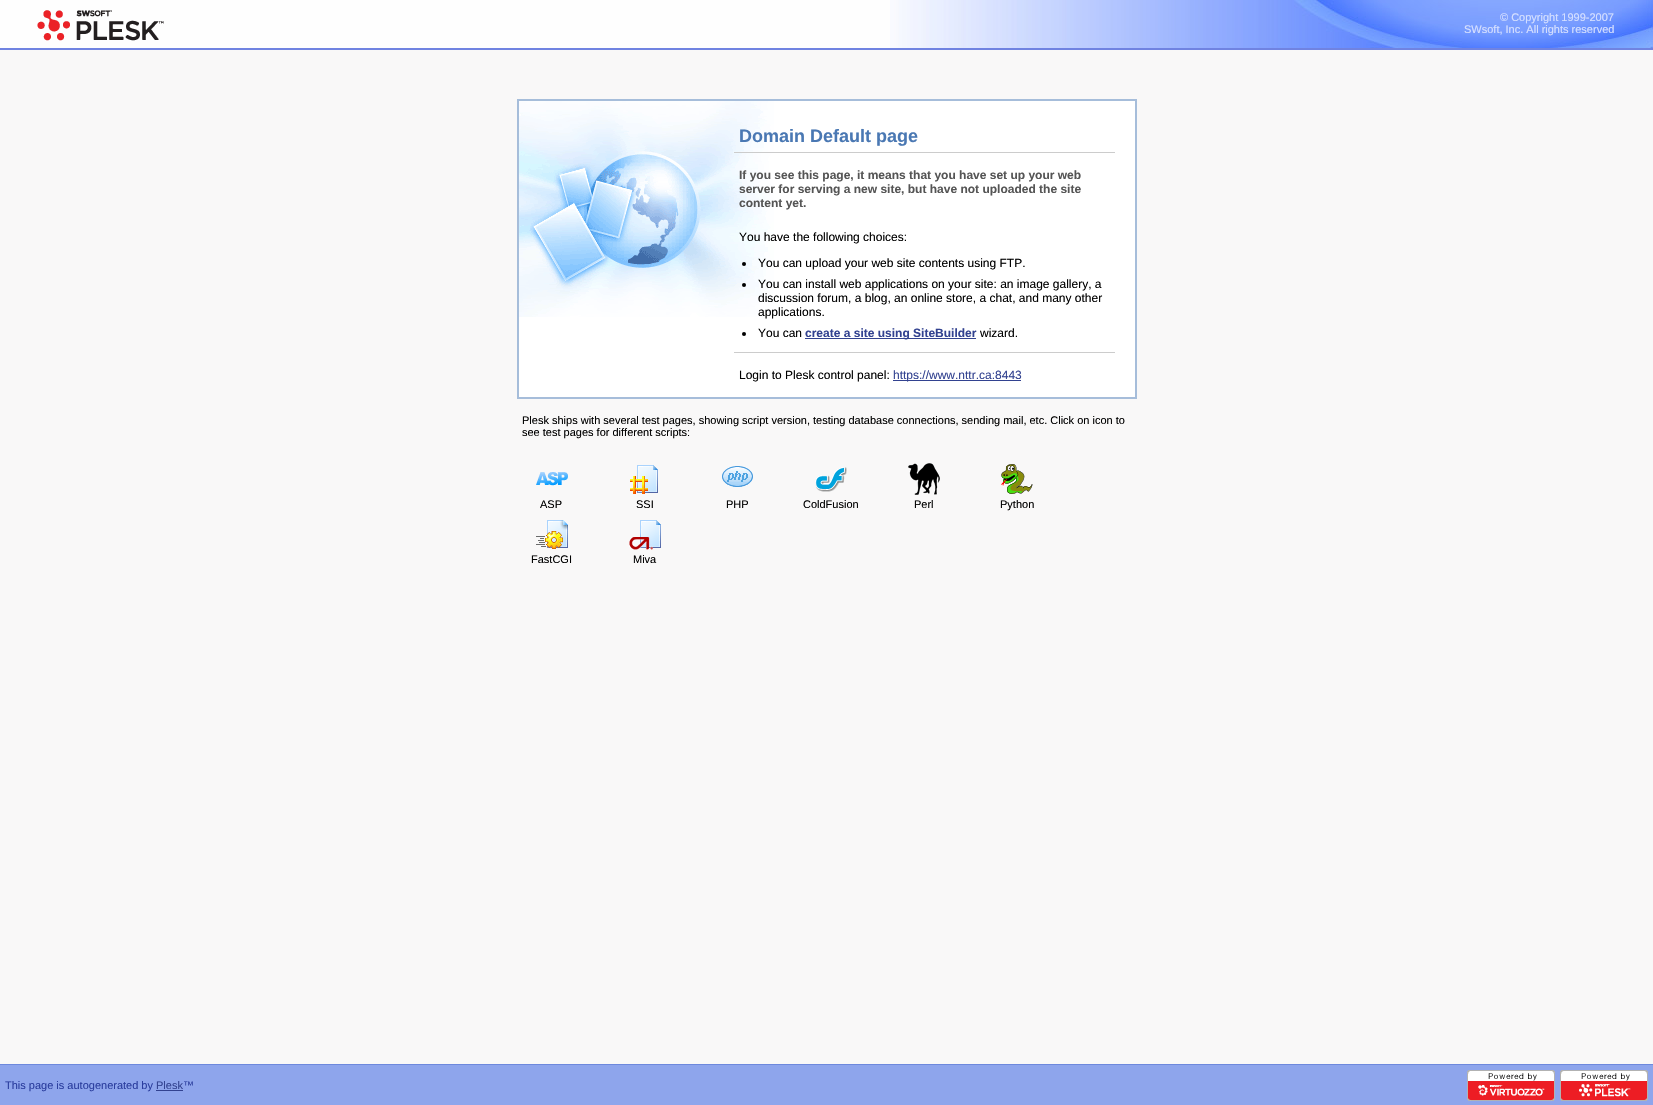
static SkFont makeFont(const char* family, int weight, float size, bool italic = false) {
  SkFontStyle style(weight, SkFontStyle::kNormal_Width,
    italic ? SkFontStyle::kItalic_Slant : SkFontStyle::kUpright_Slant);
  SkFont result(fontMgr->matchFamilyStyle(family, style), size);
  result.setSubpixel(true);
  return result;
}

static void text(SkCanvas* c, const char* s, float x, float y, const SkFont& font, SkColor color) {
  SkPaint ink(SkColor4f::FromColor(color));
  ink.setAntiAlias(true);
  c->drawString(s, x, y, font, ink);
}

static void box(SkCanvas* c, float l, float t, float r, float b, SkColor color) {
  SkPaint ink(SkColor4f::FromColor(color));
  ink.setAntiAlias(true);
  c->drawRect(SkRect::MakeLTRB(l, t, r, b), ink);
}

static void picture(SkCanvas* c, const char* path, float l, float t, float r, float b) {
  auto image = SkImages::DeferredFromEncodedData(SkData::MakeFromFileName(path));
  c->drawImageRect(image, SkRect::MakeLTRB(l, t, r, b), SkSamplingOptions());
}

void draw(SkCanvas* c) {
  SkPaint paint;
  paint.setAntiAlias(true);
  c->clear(0xfff9f8f8);
  box(c, 0, 0, 890, 48, 0xfffefefe);
  box(c, 0, 48, 1653, 50, 0xff7083e1);
  picture(c, "img_01.png", 890, 0, 1653, 48);
  picture(c, "img_02.png", 37, 10, 164, 41);
  SkFont face1 = makeFont("Liberation Sans", 400, 11);
  text(c, "© Copyright 1999-2007", 1500, 21, face1, 0xffd6e0ff);
  text(c, "SWsoft, Inc. All rights reserved", 1464, 33, face1, 0xffd6e0ff);
  box(c, 519, 101, 1135, 397, 0xffffffff);
  picture(c, "img_03.png", 519, 101, 774, 317);
  paint.setStyle(SkPaint::kStroke_Style);
  paint.setStrokeWidth(2);
  paint.setColor(0xffa6bdda);
  c->drawRect(SkRect::MakeLTRB(518, 100, 1136, 398), paint);
  box(c, 734, 152, 1115, 153, 0xffcccccc);
  SkFont face2 = makeFont("Liberation Sans", 700, 18);
  text(c, "Domain Default page", 739, 142, face2, 0xff4a78b3);
  SkFont face3 = makeFont("Liberation Sans", 700, 12);
  text(c, "If you see this page, it means that you have set up your web", 739, 179, face3, 0xff555555);
  text(c, "server for serving a new site, but have not uploaded the site", 739, 193, face3, 0xff555555);
  text(c, "content yet.", 739, 207, face3, 0xff555555);
  SkFont face4 = makeFont("Liberation Sans", 400, 12);
  text(c, "You have the following choices:", 739, 241, face4, 0xff000000);
  paint.setStyle(SkPaint::kFill_Style);
  paint.setColor(0xff000000);
  c->drawCircle(744, 264, 2, paint);
  text(c, "You can upload your web site contents using FTP.", 758, 267, face4, 0xff000000);
  c->drawCircle(744, 285, 2, paint);
  text(c, "You can install web applications on your site: an image gallery, a", 758, 288, face4, 0xff000000);
  text(c, "discussion forum, a blog, an online store, a chat, and many other", 758, 302, face4, 0xff000000);
  text(c, "applications.", 758, 316, face4, 0xff000000);
  c->drawCircle(744, 334, 2, paint);
  text(c, "You can", 758, 337, face4, 0xff000000);
  box(c, 805, 338, 976, 339, 0xff324290);
  text(c, "create a site using SiteBuilder", 805, 337, face3, 0xff324290);
  text(c, "wizard.", 980, 337, face4, 0xff000000);
  box(c, 734, 352, 1115, 353, 0xffcccccc);
  text(c, "Login to Plesk control panel:", 739, 379, face4, 0xff000000);
  box(c, 893, 380, 1021, 381, 0xff324290);
  text(c, "https://www.nttr.ca:8443", 893, 379, face4, 0xff324290);
  text(c, "Plesk ships with several test pages, showing script version, testing database connections, sending mail, etc. Click on icon to", 522, 424, face1, 0xff000000);
  text(c, "see test pages for different scripts:", 522, 436, face1, 0xff000000);
  picture(c, "img_04.png", 536, 472, 568, 486);
  text(c, "ASP", 540, 508, face1, 0xff000000);
  picture(c, "img_05.png", 630, 465, 658, 494);
  text(c, "SSI", 636, 508, face1, 0xff000000);
  picture(c, "img_06.png", 722, 466, 753, 487);
  text(c, "PHP", 726, 508, face1, 0xff000000);
  picture(c, "img_07.png", 815, 467, 847, 492);
  text(c, "ColdFusion", 803, 508, face1, 0xff000000);
  picture(c, "img_08.png", 908, 463, 940, 495);
  text(c, "Perl", 914, 508, face1, 0xff000000);
  picture(c, "img_09.png", 1001, 464, 1033, 494);
  text(c, "Python", 1000, 508, face1, 0xff000000);
  picture(c, "img_10.png", 536, 520, 568, 549);
  text(c, "FastCGI", 531, 563, face1, 0xff000000);
  picture(c, "img_11.png", 629, 520, 661, 550);
  text(c, "Miva", 633, 563, face1, 0xff000000);
  box(c, 0, 1065, 1653, 1105, 0xff8ea5ec);
  box(c, 0, 1064, 1653, 1065, 0xff6e89dd);
  text(c, "This page is autogenerated by", 5, 1089, face1, 0xff2a3d9e);
  text(c, "Plesk", 156, 1089, face1, 0xff324290);
  box(c, 156, 1090, 183, 1091, 0xff324290);
  text(c, "™", 183, 1089, face1, 0xff2a3d9e);
  picture(c, "img_12.png", 1467, 1070, 1555, 1101);
  picture(c, "img_13.png", 1560, 1070, 1648, 1101);
}
